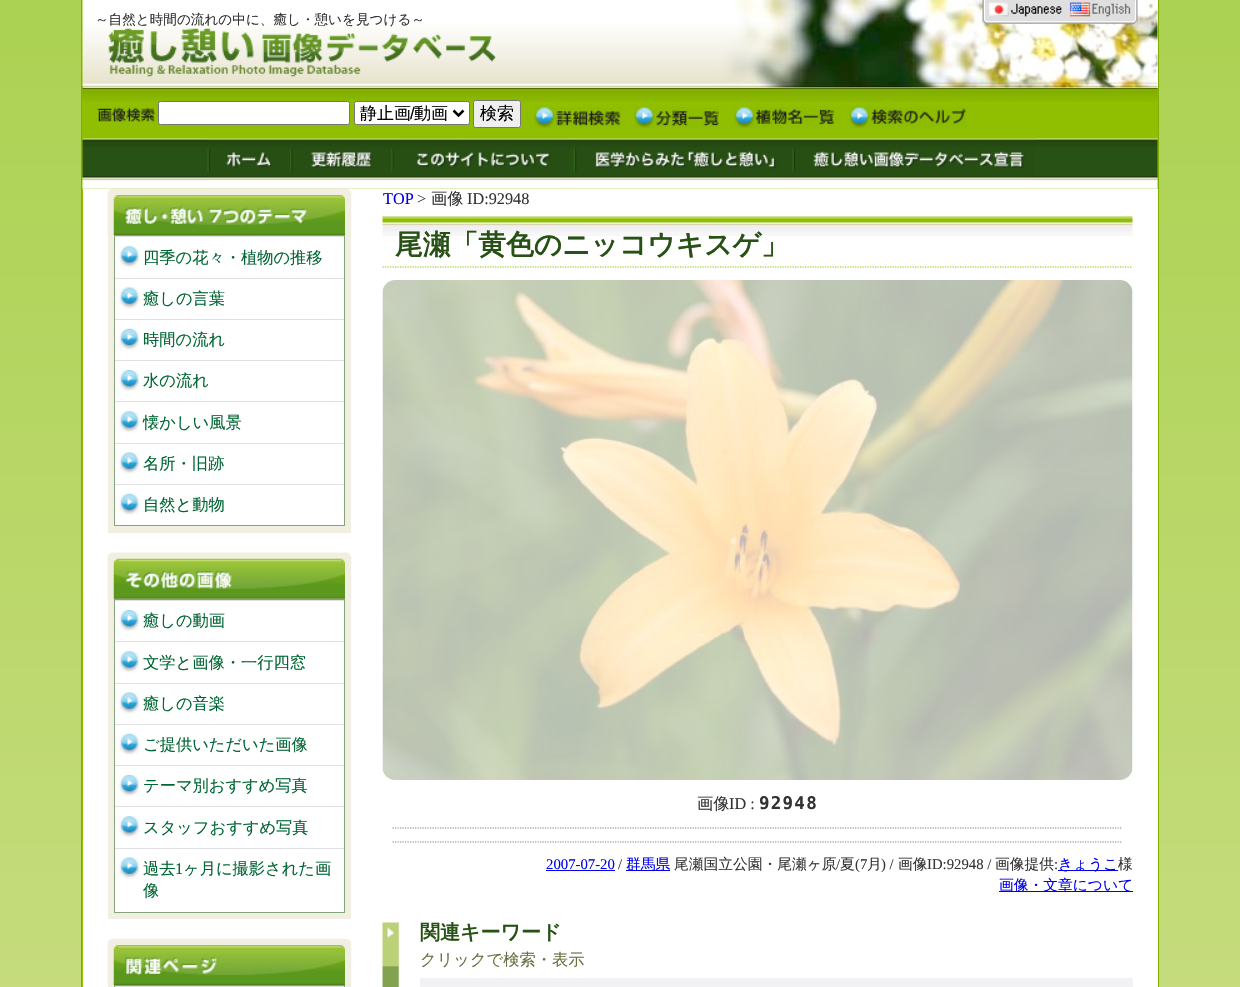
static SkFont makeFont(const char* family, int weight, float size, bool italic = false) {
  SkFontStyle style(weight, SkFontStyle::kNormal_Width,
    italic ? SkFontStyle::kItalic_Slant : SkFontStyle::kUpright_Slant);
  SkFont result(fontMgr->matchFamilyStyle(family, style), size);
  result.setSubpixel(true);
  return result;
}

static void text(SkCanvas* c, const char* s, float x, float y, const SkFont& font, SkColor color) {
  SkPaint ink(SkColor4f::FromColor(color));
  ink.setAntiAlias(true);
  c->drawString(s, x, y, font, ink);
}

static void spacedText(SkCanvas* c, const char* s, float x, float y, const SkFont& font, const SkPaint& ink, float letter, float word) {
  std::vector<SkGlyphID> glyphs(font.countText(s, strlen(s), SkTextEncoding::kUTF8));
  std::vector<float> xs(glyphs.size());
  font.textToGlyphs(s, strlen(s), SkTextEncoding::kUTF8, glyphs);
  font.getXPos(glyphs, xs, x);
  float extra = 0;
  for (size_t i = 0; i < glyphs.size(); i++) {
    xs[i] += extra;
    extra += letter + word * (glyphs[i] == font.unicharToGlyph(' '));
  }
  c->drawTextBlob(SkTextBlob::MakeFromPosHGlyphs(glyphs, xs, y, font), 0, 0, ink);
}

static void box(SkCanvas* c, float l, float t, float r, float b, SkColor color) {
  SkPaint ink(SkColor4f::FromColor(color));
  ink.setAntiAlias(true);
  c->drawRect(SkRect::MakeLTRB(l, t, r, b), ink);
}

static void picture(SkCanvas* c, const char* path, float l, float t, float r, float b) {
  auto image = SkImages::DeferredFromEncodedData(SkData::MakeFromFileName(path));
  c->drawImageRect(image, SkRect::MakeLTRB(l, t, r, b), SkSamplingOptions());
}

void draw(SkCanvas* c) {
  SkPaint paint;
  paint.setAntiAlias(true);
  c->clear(0xffffffff);
  picture(c, "img_01.png", 0, 0, 1240, 987);
  box(c, 82, 0, 1158, 987, 0xff8fbf00);
  box(c, 1158, 0, 1159, 987, 0xff82ae00);
  box(c, 81, 0, 82, 987, 0xff82ae00);
  picture(c, "img_05.png", 82, 87, 1158, 102);
  box(c, 83, 0, 1158, 88, 0xffffffff);
  picture(c, "img_02.png", 82, 0, 1158, 88);
  SkFont face1 = makeFont("WenQuanYi Zen Hei", 500, 13.6f);
  text(c, "～自然と時間の流れの中に、癒し・憩いを見つける～", 95, 24, face1, 0xff333333);
  picture(c, "img_03.png", 982, 0, 1138, 24);
  picture(c, "img_04.png", 108, 28, 497, 77);
  picture(c, "img_06.png", 97, 107, 156, 122);
  paint.setColor(0xffffffff);
  c->drawRoundRect(SkRect::MakeLTRB(158.5f, 101.5f, 349.5f, 124.5f), 2, 2, paint);
  paint.setStyle(SkPaint::kStroke_Style);
  paint.setStrokeWidth(1);
  paint.setColor(0xff767676);
  c->drawRoundRect(SkRect::MakeLTRB(158.5f, 101.5f, 349.5f, 124.5f), 2, 2, paint);
  paint.setStyle(SkPaint::kFill_Style);
  paint.setColor(0xffffffff);
  c->drawRoundRect(SkRect::MakeLTRB(354.5f, 101.5f, 469.5f, 124.5f), 2, 2, paint);
  paint.setStyle(SkPaint::kStroke_Style);
  paint.setColor(0xff767676);
  c->drawRoundRect(SkRect::MakeLTRB(354.5f, 101.5f, 469.5f, 124.5f), 2, 2, paint);
  paint.setStrokeWidth(2.5f);
  paint.setColor(0xff000000);
  c->drawPath(SkPathBuilder().moveTo(453.5f, 110.5f).lineTo(458.5f, 115.5f).lineTo(463.5f, 110.5f).detach(), paint);
  SkFont face2 = makeFont("WenQuanYi Zen Hei", 500, 17);
  text(c, "静止画", 360, 119, face2, 0xff000000);
  SkFont face3 = makeFont("Liberation Sans", 400, 17);
  text(c, "/", 410, 119, face3, 0xff000000);
  text(c, "動画", 414, 119, face2, 0xff000000);
  paint.setStyle(SkPaint::kFill_Style);
  paint.setColor(0xffefefef);
  c->drawRoundRect(SkRect::MakeLTRB(473.5f, 100.5f, 520.5f, 127.5f), 2, 2, paint);
  paint.setStyle(SkPaint::kStroke_Style);
  paint.setStrokeWidth(1);
  paint.setColor(0xff767676);
  c->drawRoundRect(SkRect::MakeLTRB(473.5f, 100.5f, 520.5f, 127.5f), 2, 2, paint);
  text(c, "検索", 480, 119, face2, 0xff000000);
  picture(c, "img_07.png", 534, 107, 621, 128);
  picture(c, "img_08.png", 634, 107, 719, 128);
  picture(c, "img_09.png", 734, 107, 834, 128);
  picture(c, "img_10.png", 849, 107, 967, 128);
  box(c, 83, 138, 1158, 139, 0xffc0da74);
  picture(c, "img_11.png", 82, 138, 1158, 189);
  picture(c, "img_12.png", 207, 138, 290, 177);
  picture(c, "img_13.png", 290, 138, 394, 177);
  picture(c, "img_14.png", 393, 138, 570, 177);
  picture(c, "img_15.png", 573, 138, 793, 177);
  picture(c, "img_16.png", 792, 138, 1035, 177);
  box(c, 83, 189, 1158, 987, 0xffffffff);
  box(c, 108, 235, 351, 533, 0xfff1efe2);
  picture(c, "img_17.png", 107, 188, 352, 235);
  picture(c, "img_18.png", 113, 195, 345, 235);
  box(c, 115, 237, 344, 525, 0xffffffff);
  paint.setColor(0xff86a47b);
  c->drawRect(SkRect::MakeLTRB(114.5f, 235.5f, 344.5f, 525.5f), paint);
  picture(c, "img_19.png", 119, 246, 140, 268);
  box(c, 115, 236, 344, 237, 0xffe0dfe3);
  SkFont face4 = makeFont("WenQuanYi Zen Hei", 500, 16.25f);
  text(c, "四季の花々・植物の推移", 143, 263, face4, 0xff006633);
  picture(c, "img_20.png", 119, 287, 140, 309);
  box(c, 115, 278, 344, 279, 0xffe0dfe3);
  text(c, "癒しの言葉", 143, 304, face4, 0xff006633);
  picture(c, "img_21.png", 119, 328, 140, 350);
  box(c, 115, 319, 344, 320, 0xffe0dfe3);
  text(c, "時間の流れ", 143, 345, face4, 0xff006633);
  picture(c, "img_22.png", 119, 370, 140, 391);
  box(c, 115, 360, 344, 361, 0xffe0dfe3);
  text(c, "水の流れ", 143, 386, face4, 0xff006633);
  picture(c, "img_19.png", 119, 411, 140, 433);
  box(c, 115, 401, 344, 402, 0xffe0dfe3);
  text(c, "懐かしい風景", 143, 428, face4, 0xff006633);
  picture(c, "img_23.png", 119, 452, 140, 474);
  box(c, 115, 443, 344, 444, 0xffe0dfe3);
  text(c, "名所・旧跡", 143, 469, face4, 0xff006633);
  picture(c, "img_21.png", 119, 493, 140, 515);
  box(c, 115, 484, 344, 485, 0xffe0dfe3);
  text(c, "自然と動物", 143, 510, face4, 0xff006633);
  box(c, 108, 598, 351, 919, 0xfff1efe2);
  picture(c, "img_24.png", 107, 552, 352, 599);
  picture(c, "img_25.png", 113, 558, 345, 599);
  box(c, 115, 601, 344, 912, 0xffffffff);
  c->drawRect(SkRect::MakeLTRB(114.5f, 599.5f, 344.5f, 912.5f), paint);
  picture(c, "img_22.png", 119, 610, 140, 631);
  box(c, 115, 600, 344, 601, 0xffe0dfe3);
  text(c, "癒しの動画", 143, 626, face4, 0xff006633);
  picture(c, "img_19.png", 119, 651, 140, 673);
  box(c, 115, 641, 344, 642, 0xffe0dfe3);
  text(c, "文学と画像・一行四窓", 143, 668, face4, 0xff006633);
  picture(c, "img_23.png", 119, 692, 140, 714);
  box(c, 115, 683, 344, 684, 0xffe0dfe3);
  text(c, "癒しの音楽", 143, 709, face4, 0xff006633);
  picture(c, "img_21.png", 119, 733, 140, 755);
  box(c, 115, 724, 344, 725, 0xffe0dfe3);
  text(c, "ご提供いただいた画像", 143, 750, face4, 0xff006633);
  picture(c, "img_26.png", 119, 775, 140, 796);
  box(c, 115, 765, 344, 766, 0xffe0dfe3);
  text(c, "テーマ別おすすめ写真", 143, 791, face4, 0xff006633);
  picture(c, "img_19.png", 119, 816, 140, 838);
  box(c, 115, 806, 344, 807, 0xffe0dfe3);
  text(c, "スタッフおすすめ写真", 143, 833, face4, 0xff006633);
  picture(c, "img_23.png", 119, 857, 140, 879);
  box(c, 115, 848, 344, 849, 0xffe0dfe3);
  text(c, "過去", 143, 874, face4, 0xff006633);
  SkFont face5 = makeFont("Liberation Serif", 400, 16.25f);
  text(c, "1", 175, 874, face5, 0xff006633);
  text(c, "ヶ月に撮影された画", 183, 874, face4, 0xff006633);
  text(c, "像", 143, 896, face4, 0xff006633);
  box(c, 108, 985, 351, 987, 0xfff1efe2);
  picture(c, "img_27.png", 107, 938, 352, 985);
  picture(c, "img_28.png", 113, 945, 345, 985);
  c->drawRect(SkRect::MakeLTRB(114.5f, 985.5f, 344.5f, 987.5f), paint);
  box(c, 115, 986, 344, 987, 0xffe0dfe3);
  text(c, "TOP", 383, 204, face5, 0xff0000ee);
  text(c, ">", 417, 204, face5, 0xff333333);
  text(c, "画像", 431, 204, face4, 0xff333333);
  text(c, "ID:92948", 467, 204, face5, 0xff333333);
  picture(c, "img_29.png", 382, 216, 1133, 236);
  paint.setStrokeWidth(1.2f);
  paint.setColor(0xff8fbf00);
  paint.setPathEffect(SkDashPathEffect::Make({{1.25f, 1.25f}}, 0));
  c->drawPath(SkPathBuilder().moveTo(382.5f, 267).lineTo(1132.5f, 267).detach(), paint);
  paint.setPathEffect(nullptr);
  SkFont face6 = makeFont("WenQuanYi Zen Hei", 700, 27.75f);
  text(c, "尾瀬「黄色のニッコウキスゲ」", 395, 254, face6, 0xff285115);
  picture(c, "img_30.png", 382, 280, 1133, 780);
  text(c, "画像", 697, 809, face4, 0xff333333);
  text(c, "ID :", 729, 809, face5, 0xff333333);
  SkFont face7 = makeFont("DejaVu Sans Mono", 700, 17.5f);
  paint.setStyle(SkPaint::kFill_Style);
  paint.setColor(0xff333333);
  spacedText(c, "92948", 759, 809, face7, paint, 1.25f, 0);
  paint.setStyle(SkPaint::kStroke_Style);
  paint.setColor(0xff808080);
  paint.setPathEffect(SkDashPathEffect::Make({{1.25f, 1.25f}}, 0));
  c->drawPath(SkPathBuilder().moveTo(392.5f, 828).lineTo(1122.5f, 828).detach(), paint);
  paint.setPathEffect(nullptr);
  paint.setPathEffect(SkDashPathEffect::Make({{1.25f, 1.25f}}, 0));
  c->drawPath(SkPathBuilder().moveTo(392.5f, 842).lineTo(1122.5f, 842).detach(), paint);
  paint.setPathEffect(nullptr);
  SkFont face8 = makeFont("Liberation Serif", 400, 14.75f);
  text(c, "2007-07-20", 546, 869, face8, 0xff0000ee);
  box(c, 546, 870, 615, 871, 0xff0000ee);
  text(c, "/", 618, 869, face8, 0xff333333);
  box(c, 626, 870, 670, 871, 0xff0000ee);
  SkFont face9 = makeFont("WenQuanYi Zen Hei", 500, 14.75f);
  text(c, "群馬県", 626, 869, face9, 0xff0000ee);
  text(c, "尾瀬国立公園・尾瀬ヶ原", 674, 869, face9, 0xff333333);
  text(c, "/", 836, 869, face8, 0xff333333);
  text(c, "夏", 840, 869, face9, 0xff333333);
  text(c, "(7", 855, 869, face8, 0xff333333);
  text(c, "月", 867, 869, face9, 0xff333333);
  text(c, ") /", 881, 869, face8, 0xff333333);
  text(c, "画像", 898, 869, face9, 0xff333333);
  text(c, "ID:92948 /", 927, 869, face8, 0xff333333);
  text(c, "画像提供", 995, 869, face9, 0xff333333);
  text(c, ":", 1054, 869, face8, 0xff333333);
  box(c, 1058, 870, 1118, 871, 0xff0000ee);
  text(c, "きょうこ", 1058, 869, face9, 0xff0000ee);
  text(c, "様", 1118, 869, face9, 0xff333333);
  box(c, 999, 891, 1133, 892, 0xff0000ee);
  text(c, "画像・文章について", 999, 890, face9, 0xff0000ee);
  picture(c, "img_31.png", 382, 922, 399, 987);
  SkFont face10 = makeFont("WenQuanYi Zen Hei", 700, 20);
  text(c, "関連キーワード", 420, 939, face10, 0xff285115);
  text(c, "クリックで検索・表示", 420, 965, face4, 0xff667041);
  box(c, 420, 978, 1133, 987, 0xfff2f1f3);
}
